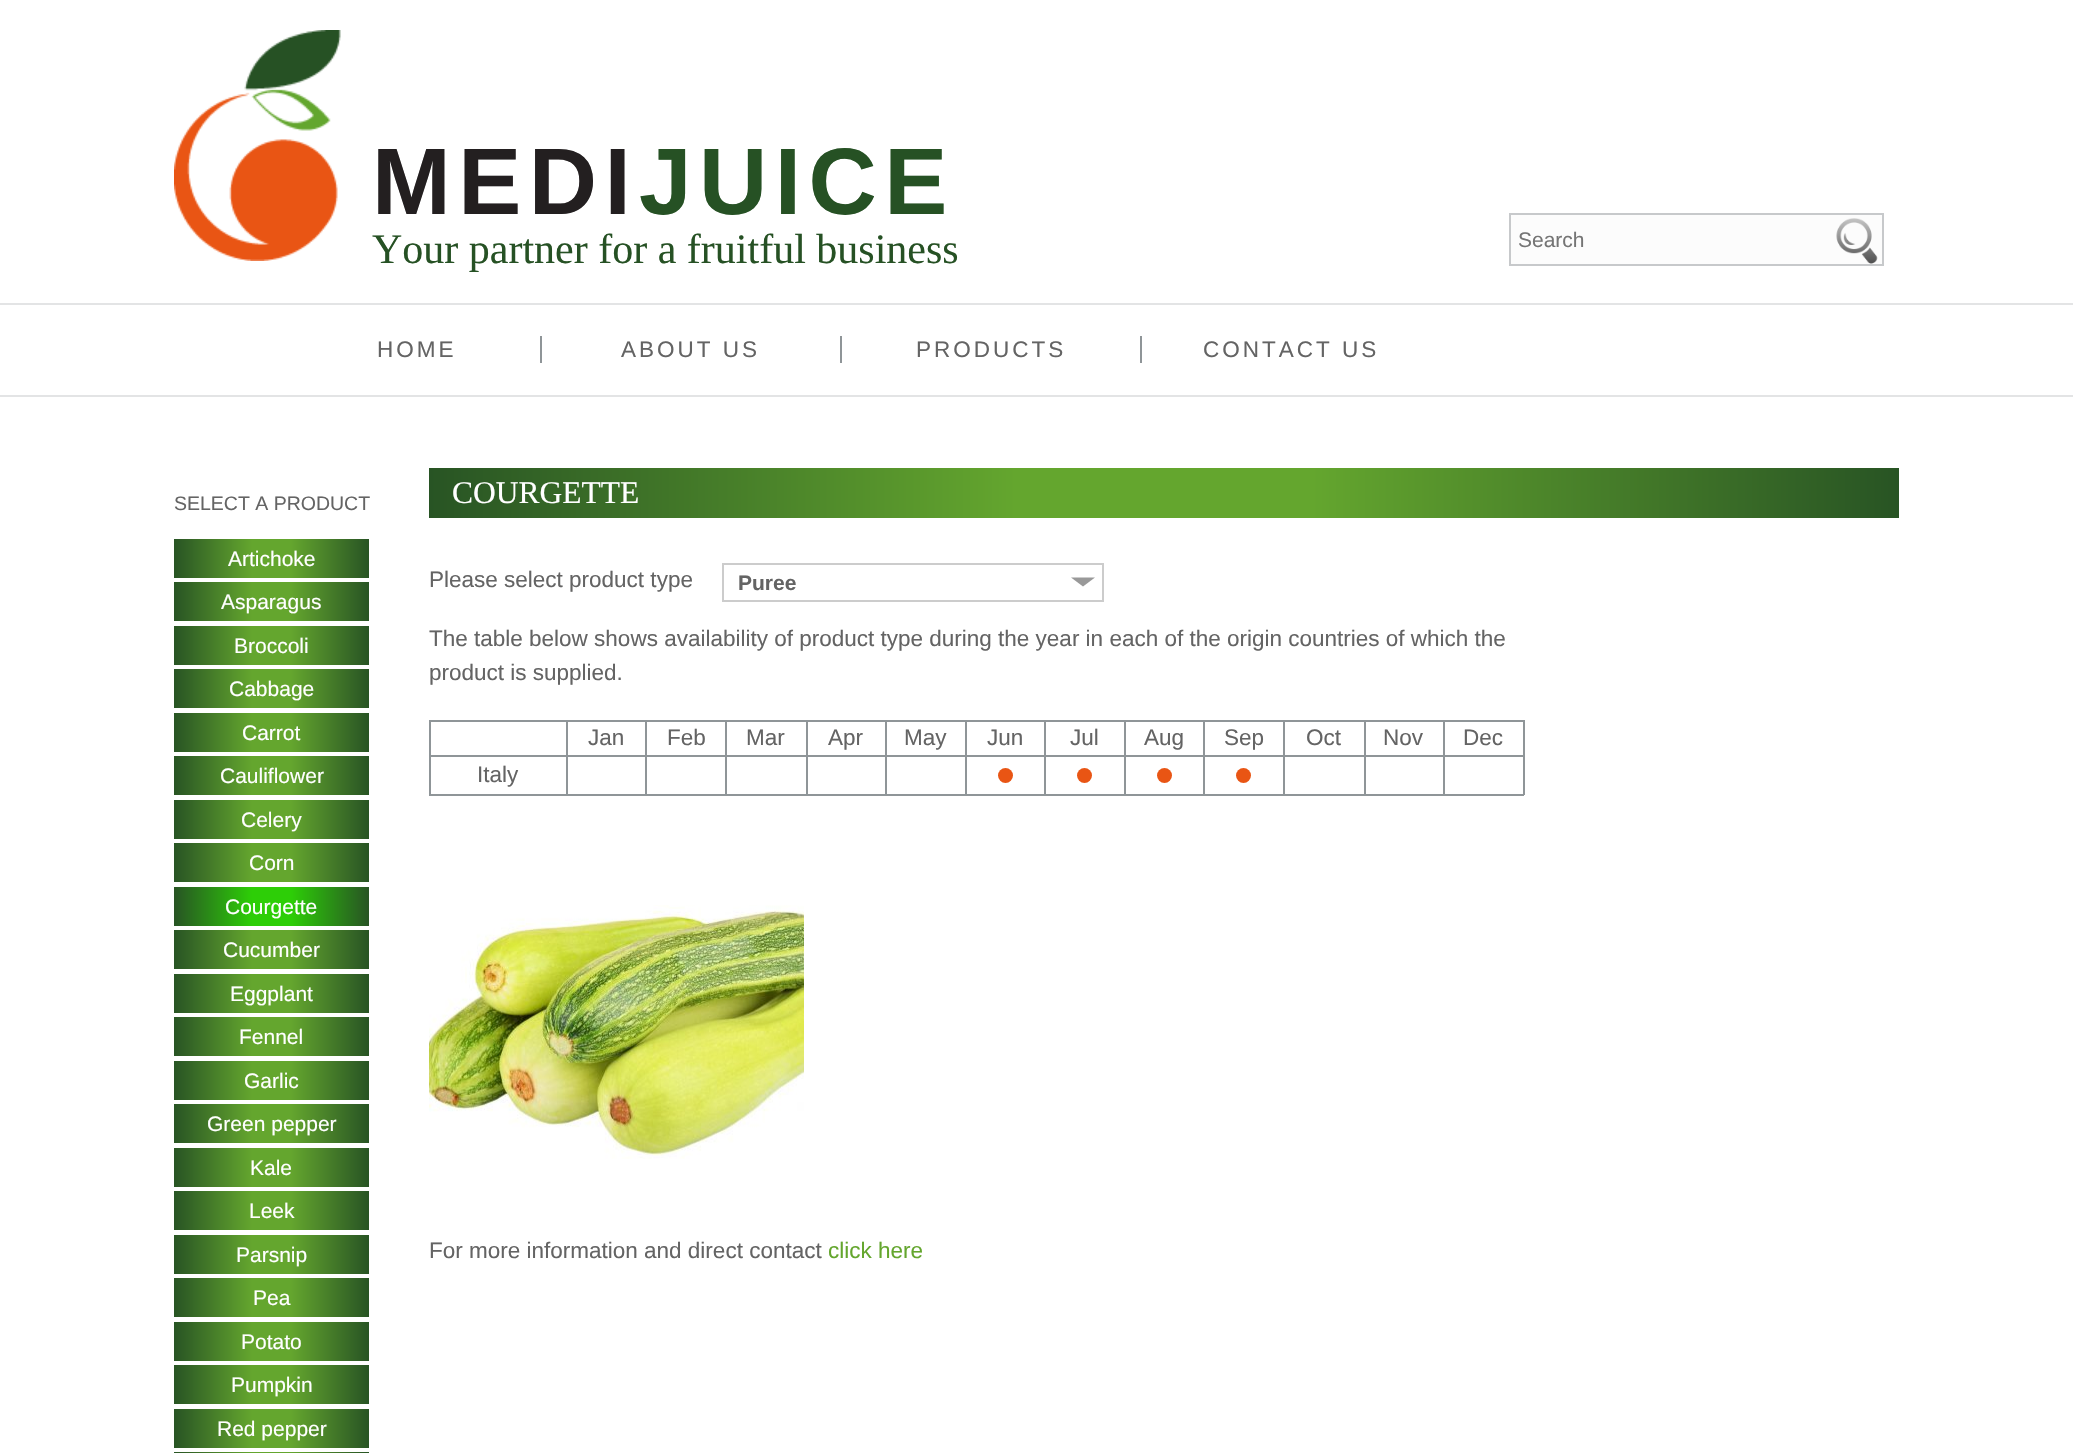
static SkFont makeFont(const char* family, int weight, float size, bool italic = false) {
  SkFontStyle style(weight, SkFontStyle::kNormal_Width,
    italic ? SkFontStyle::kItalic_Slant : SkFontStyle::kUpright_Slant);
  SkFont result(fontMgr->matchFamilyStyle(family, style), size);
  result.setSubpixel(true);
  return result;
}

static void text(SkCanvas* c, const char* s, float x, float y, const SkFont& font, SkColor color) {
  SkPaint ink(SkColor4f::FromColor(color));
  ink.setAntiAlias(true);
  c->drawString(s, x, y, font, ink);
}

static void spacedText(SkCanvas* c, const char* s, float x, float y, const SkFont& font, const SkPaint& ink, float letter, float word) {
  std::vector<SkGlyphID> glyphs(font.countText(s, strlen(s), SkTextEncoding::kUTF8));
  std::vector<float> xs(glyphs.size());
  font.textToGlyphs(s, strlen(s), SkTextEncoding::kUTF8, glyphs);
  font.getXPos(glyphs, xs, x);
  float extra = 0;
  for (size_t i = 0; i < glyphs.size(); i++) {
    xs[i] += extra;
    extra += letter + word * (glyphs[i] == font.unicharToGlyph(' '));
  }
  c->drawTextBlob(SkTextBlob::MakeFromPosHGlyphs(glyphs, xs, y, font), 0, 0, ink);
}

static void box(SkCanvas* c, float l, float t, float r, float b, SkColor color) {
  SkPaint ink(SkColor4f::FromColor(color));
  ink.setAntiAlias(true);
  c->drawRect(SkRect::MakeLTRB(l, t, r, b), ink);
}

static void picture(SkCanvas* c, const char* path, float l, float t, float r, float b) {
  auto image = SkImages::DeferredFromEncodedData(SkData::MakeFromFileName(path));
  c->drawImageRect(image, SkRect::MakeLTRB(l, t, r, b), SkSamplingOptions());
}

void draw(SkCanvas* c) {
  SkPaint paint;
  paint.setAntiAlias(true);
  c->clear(0xffffffff);
  picture(c, "img_01.png", 174, 30, 341, 261);
  SkFont face1 = makeFont("Liberation Sans", 700, 94.5f);
  paint.setColor(0xff231f20);
  spacedText(c, "MEDI", 372, 214, face1, paint, 7.5f, 0);
  paint.setColor(0xff265124);
  spacedText(c, "JUICE", 639, 214, face1, paint, 7.5f, 0);
  SkFont face2 = makeFont("Liberation Serif", 400, 42);
  text(c, "Your partner for a fruitful business", 372, 263, face2, 0xff265124);
  paint.setColor(0xfffcfcfc);
  c->drawRect(SkRect::MakeLTRB(1510, 214, 1883, 265), paint);
  paint.setStyle(SkPaint::kStroke_Style);
  paint.setStrokeWidth(2);
  paint.setColor(0xffc7c9cb);
  c->drawRect(SkRect::MakeLTRB(1510, 214, 1883, 265), paint);
  SkFont face3 = makeFont("Liberation Sans", 400, 21);
  text(c, "Search", 1518, 247, face3, 0xff757575);
  picture(c, "img_02.png", 1836, 218, 1878, 264);
  box(c, 0, 303, 2073, 305, 0xffe3e4e5);
  box(c, 0, 395, 2073, 397, 0xffe3e4e5);
  SkFont face4 = makeFont("Liberation Sans", 400, 22.5f);
  paint.setStyle(SkPaint::kFill_Style);
  paint.setColor(0xff646464);
  spacedText(c, "HOME", 377, 357, face4, paint, 3, 0);
  box(c, 540, 336, 542, 363, 0xff8f9598);
  spacedText(c, "ABOUT US", 621, 357, face4, paint, 3, 0);
  box(c, 840, 336, 842, 363, 0xff8f9598);
  spacedText(c, "PRODUCTS", 916, 357, face4, paint, 3, 0);
  box(c, 1140, 336, 1142, 363, 0xff8f9598);
  spacedText(c, "CONTACT US", 1203, 357, face4, paint, 3, 0);
  SkFont face5 = makeFont("Liberation Sans", 400, 19.5f);
  text(c, "SELECT A PRODUCT", 174, 510, face5, 0xff646464);
  box(c, 252, 539, 291, 578, 0xff64a62e);
  {
    const SkColor colors[] = {0xff285424, 0xff64a62e};
    const float stops[] = {0, 1};
    const SkPoint ends[] = {{174, 558}, {252, 558}};
    paint.setShader(SkGradientShader::MakeLinear(ends, colors, stops, 2, SkTileMode::kClamp));
    paint.setAlpha(255);
  }
  c->drawRect(SkRect::MakeLTRB(174, 539, 252, 578), paint);
  {
    const SkColor colors[] = {0xff285424, 0xff64a62e};
    const float stops[] = {0, 1};
    const SkPoint ends[] = {{369, 558}, {291, 558}};
    paint.setShader(SkGradientShader::MakeLinear(ends, colors, stops, 2, SkTileMode::kClamp));
    paint.setAlpha(255);
  }
  c->drawRect(SkRect::MakeLTRB(291, 539, 369, 578), paint);
  text(c, "Artichoke", 228, 566, face3, 0xffffffff);
  box(c, 252, 582, 291, 621, 0xff64a62e);
  {
    const SkColor colors[] = {0xff285424, 0xff64a62e};
    const float stops[] = {0, 1};
    const SkPoint ends[] = {{174, 602}, {252, 602}};
    paint.setShader(SkGradientShader::MakeLinear(ends, colors, stops, 2, SkTileMode::kClamp));
    paint.setAlpha(255);
  }
  c->drawRect(SkRect::MakeLTRB(174, 582, 252, 621), paint);
  {
    const SkColor colors[] = {0xff285424, 0xff64a62e};
    const float stops[] = {0, 1};
    const SkPoint ends[] = {{369, 602}, {291, 602}};
    paint.setShader(SkGradientShader::MakeLinear(ends, colors, stops, 2, SkTileMode::kClamp));
    paint.setAlpha(255);
  }
  c->drawRect(SkRect::MakeLTRB(291, 582, 369, 621), paint);
  text(c, "Asparagus", 221, 609, face3, 0xffffffff);
  box(c, 252, 626, 291, 665, 0xff64a62e);
  {
    const SkColor colors[] = {0xff285424, 0xff64a62e};
    const float stops[] = {0, 1};
    const SkPoint ends[] = {{174, 645}, {252, 645}};
    paint.setShader(SkGradientShader::MakeLinear(ends, colors, stops, 2, SkTileMode::kClamp));
    paint.setAlpha(255);
  }
  c->drawRect(SkRect::MakeLTRB(174, 626, 252, 665), paint);
  {
    const SkColor colors[] = {0xff285424, 0xff64a62e};
    const float stops[] = {0, 1};
    const SkPoint ends[] = {{369, 645}, {291, 645}};
    paint.setShader(SkGradientShader::MakeLinear(ends, colors, stops, 2, SkTileMode::kClamp));
    paint.setAlpha(255);
  }
  c->drawRect(SkRect::MakeLTRB(291, 626, 369, 665), paint);
  text(c, "Broccoli", 234, 653, face3, 0xffffffff);
  box(c, 252, 669, 291, 708, 0xff64a62e);
  {
    const SkColor colors[] = {0xff285424, 0xff64a62e};
    const float stops[] = {0, 1};
    const SkPoint ends[] = {{174, 689}, {252, 689}};
    paint.setShader(SkGradientShader::MakeLinear(ends, colors, stops, 2, SkTileMode::kClamp));
    paint.setAlpha(255);
  }
  c->drawRect(SkRect::MakeLTRB(174, 669, 252, 708), paint);
  {
    const SkColor colors[] = {0xff285424, 0xff64a62e};
    const float stops[] = {0, 1};
    const SkPoint ends[] = {{369, 689}, {291, 689}};
    paint.setShader(SkGradientShader::MakeLinear(ends, colors, stops, 2, SkTileMode::kClamp));
    paint.setAlpha(255);
  }
  c->drawRect(SkRect::MakeLTRB(291, 669, 369, 708), paint);
  text(c, "Cabbage", 229, 696, face3, 0xffffffff);
  box(c, 252, 713, 291, 752, 0xff64a62e);
  {
    const SkColor colors[] = {0xff285424, 0xff64a62e};
    const float stops[] = {0, 1};
    const SkPoint ends[] = {{174, 732}, {252, 732}};
    paint.setShader(SkGradientShader::MakeLinear(ends, colors, stops, 2, SkTileMode::kClamp));
    paint.setAlpha(255);
  }
  c->drawRect(SkRect::MakeLTRB(174, 713, 252, 752), paint);
  {
    const SkColor colors[] = {0xff285424, 0xff64a62e};
    const float stops[] = {0, 1};
    const SkPoint ends[] = {{369, 732}, {291, 732}};
    paint.setShader(SkGradientShader::MakeLinear(ends, colors, stops, 2, SkTileMode::kClamp));
    paint.setAlpha(255);
  }
  c->drawRect(SkRect::MakeLTRB(291, 713, 369, 752), paint);
  text(c, "Carrot", 242, 740, face3, 0xffffffff);
  box(c, 252, 756, 291, 795, 0xff64a62e);
  {
    const SkColor colors[] = {0xff285424, 0xff64a62e};
    const float stops[] = {0, 1};
    const SkPoint ends[] = {{174, 776}, {252, 776}};
    paint.setShader(SkGradientShader::MakeLinear(ends, colors, stops, 2, SkTileMode::kClamp));
    paint.setAlpha(255);
  }
  c->drawRect(SkRect::MakeLTRB(174, 756, 252, 795), paint);
  {
    const SkColor colors[] = {0xff285424, 0xff64a62e};
    const float stops[] = {0, 1};
    const SkPoint ends[] = {{369, 776}, {291, 776}};
    paint.setShader(SkGradientShader::MakeLinear(ends, colors, stops, 2, SkTileMode::kClamp));
    paint.setAlpha(255);
  }
  c->drawRect(SkRect::MakeLTRB(291, 756, 369, 795), paint);
  text(c, "Cauliflower", 220, 783, face3, 0xffffffff);
  box(c, 252, 800, 291, 839, 0xff64a62e);
  {
    const SkColor colors[] = {0xff285424, 0xff64a62e};
    const float stops[] = {0, 1};
    const SkPoint ends[] = {{174, 819}, {252, 819}};
    paint.setShader(SkGradientShader::MakeLinear(ends, colors, stops, 2, SkTileMode::kClamp));
    paint.setAlpha(255);
  }
  c->drawRect(SkRect::MakeLTRB(174, 800, 252, 839), paint);
  {
    const SkColor colors[] = {0xff285424, 0xff64a62e};
    const float stops[] = {0, 1};
    const SkPoint ends[] = {{369, 819}, {291, 819}};
    paint.setShader(SkGradientShader::MakeLinear(ends, colors, stops, 2, SkTileMode::kClamp));
    paint.setAlpha(255);
  }
  c->drawRect(SkRect::MakeLTRB(291, 800, 369, 839), paint);
  text(c, "Celery", 241, 827, face3, 0xffffffff);
  box(c, 252, 843, 291, 882, 0xff64a62e);
  {
    const SkColor colors[] = {0xff285424, 0xff64a62e};
    const float stops[] = {0, 1};
    const SkPoint ends[] = {{174, 863}, {252, 863}};
    paint.setShader(SkGradientShader::MakeLinear(ends, colors, stops, 2, SkTileMode::kClamp));
    paint.setAlpha(255);
  }
  c->drawRect(SkRect::MakeLTRB(174, 843, 252, 882), paint);
  {
    const SkColor colors[] = {0xff285424, 0xff64a62e};
    const float stops[] = {0, 1};
    const SkPoint ends[] = {{369, 863}, {291, 863}};
    paint.setShader(SkGradientShader::MakeLinear(ends, colors, stops, 2, SkTileMode::kClamp));
    paint.setAlpha(255);
  }
  c->drawRect(SkRect::MakeLTRB(291, 843, 369, 882), paint);
  text(c, "Corn", 249, 870, face3, 0xffffffff);
  box(c, 252, 887, 291, 926, 0xff2dce07);
  {
    const SkColor colors[] = {0xff285424, 0xff2dce07};
    const float stops[] = {0, 1};
    const SkPoint ends[] = {{174, 906}, {252, 906}};
    paint.setShader(SkGradientShader::MakeLinear(ends, colors, stops, 2, SkTileMode::kClamp));
    paint.setAlpha(255);
  }
  c->drawRect(SkRect::MakeLTRB(174, 887, 252, 926), paint);
  {
    const SkColor colors[] = {0xff285424, 0xff2dce07};
    const float stops[] = {0, 1};
    const SkPoint ends[] = {{369, 906}, {291, 906}};
    paint.setShader(SkGradientShader::MakeLinear(ends, colors, stops, 2, SkTileMode::kClamp));
    paint.setAlpha(255);
  }
  c->drawRect(SkRect::MakeLTRB(291, 887, 369, 926), paint);
  text(c, "Courgette", 225, 914, face3, 0xffffffff);
  box(c, 252, 930, 291, 969, 0xff64a62e);
  {
    const SkColor colors[] = {0xff285424, 0xff64a62e};
    const float stops[] = {0, 1};
    const SkPoint ends[] = {{174, 950}, {252, 950}};
    paint.setShader(SkGradientShader::MakeLinear(ends, colors, stops, 2, SkTileMode::kClamp));
    paint.setAlpha(255);
  }
  c->drawRect(SkRect::MakeLTRB(174, 930, 252, 969), paint);
  {
    const SkColor colors[] = {0xff285424, 0xff64a62e};
    const float stops[] = {0, 1};
    const SkPoint ends[] = {{369, 950}, {291, 950}};
    paint.setShader(SkGradientShader::MakeLinear(ends, colors, stops, 2, SkTileMode::kClamp));
    paint.setAlpha(255);
  }
  c->drawRect(SkRect::MakeLTRB(291, 930, 369, 969), paint);
  text(c, "Cucumber", 223, 957, face3, 0xffffffff);
  box(c, 252, 974, 291, 1013, 0xff64a62e);
  {
    const SkColor colors[] = {0xff285424, 0xff64a62e};
    const float stops[] = {0, 1};
    const SkPoint ends[] = {{174, 993}, {252, 993}};
    paint.setShader(SkGradientShader::MakeLinear(ends, colors, stops, 2, SkTileMode::kClamp));
    paint.setAlpha(255);
  }
  c->drawRect(SkRect::MakeLTRB(174, 974, 252, 1013), paint);
  {
    const SkColor colors[] = {0xff285424, 0xff64a62e};
    const float stops[] = {0, 1};
    const SkPoint ends[] = {{369, 993}, {291, 993}};
    paint.setShader(SkGradientShader::MakeLinear(ends, colors, stops, 2, SkTileMode::kClamp));
    paint.setAlpha(255);
  }
  c->drawRect(SkRect::MakeLTRB(291, 974, 369, 1013), paint);
  text(c, "Eggplant", 230, 1001, face3, 0xffffffff);
  box(c, 252, 1017, 291, 1056, 0xff64a62e);
  {
    const SkColor colors[] = {0xff285424, 0xff64a62e};
    const float stops[] = {0, 1};
    const SkPoint ends[] = {{174, 1037}, {252, 1037}};
    paint.setShader(SkGradientShader::MakeLinear(ends, colors, stops, 2, SkTileMode::kClamp));
    paint.setAlpha(255);
  }
  c->drawRect(SkRect::MakeLTRB(174, 1017, 252, 1056), paint);
  {
    const SkColor colors[] = {0xff285424, 0xff64a62e};
    const float stops[] = {0, 1};
    const SkPoint ends[] = {{369, 1037}, {291, 1037}};
    paint.setShader(SkGradientShader::MakeLinear(ends, colors, stops, 2, SkTileMode::kClamp));
    paint.setAlpha(255);
  }
  c->drawRect(SkRect::MakeLTRB(291, 1017, 369, 1056), paint);
  text(c, "Fennel", 239, 1044, face3, 0xffffffff);
  box(c, 252, 1061, 291, 1100, 0xff64a62e);
  {
    const SkColor colors[] = {0xff285424, 0xff64a62e};
    const float stops[] = {0, 1};
    const SkPoint ends[] = {{174, 1080}, {252, 1080}};
    paint.setShader(SkGradientShader::MakeLinear(ends, colors, stops, 2, SkTileMode::kClamp));
    paint.setAlpha(255);
  }
  c->drawRect(SkRect::MakeLTRB(174, 1061, 252, 1100), paint);
  {
    const SkColor colors[] = {0xff285424, 0xff64a62e};
    const float stops[] = {0, 1};
    const SkPoint ends[] = {{369, 1080}, {291, 1080}};
    paint.setShader(SkGradientShader::MakeLinear(ends, colors, stops, 2, SkTileMode::kClamp));
    paint.setAlpha(255);
  }
  c->drawRect(SkRect::MakeLTRB(291, 1061, 369, 1100), paint);
  text(c, "Garlic", 244, 1088, face3, 0xffffffff);
  box(c, 252, 1104, 291, 1143, 0xff64a62e);
  {
    const SkColor colors[] = {0xff285424, 0xff64a62e};
    const float stops[] = {0, 1};
    const SkPoint ends[] = {{174, 1124}, {252, 1124}};
    paint.setShader(SkGradientShader::MakeLinear(ends, colors, stops, 2, SkTileMode::kClamp));
    paint.setAlpha(255);
  }
  c->drawRect(SkRect::MakeLTRB(174, 1104, 252, 1143), paint);
  {
    const SkColor colors[] = {0xff285424, 0xff64a62e};
    const float stops[] = {0, 1};
    const SkPoint ends[] = {{369, 1124}, {291, 1124}};
    paint.setShader(SkGradientShader::MakeLinear(ends, colors, stops, 2, SkTileMode::kClamp));
    paint.setAlpha(255);
  }
  c->drawRect(SkRect::MakeLTRB(291, 1104, 369, 1143), paint);
  text(c, "Green pepper", 207, 1131, face3, 0xffffffff);
  box(c, 252, 1148, 291, 1187, 0xff64a62e);
  {
    const SkColor colors[] = {0xff285424, 0xff64a62e};
    const float stops[] = {0, 1};
    const SkPoint ends[] = {{174, 1167}, {252, 1167}};
    paint.setShader(SkGradientShader::MakeLinear(ends, colors, stops, 2, SkTileMode::kClamp));
    paint.setAlpha(255);
  }
  c->drawRect(SkRect::MakeLTRB(174, 1148, 252, 1187), paint);
  {
    const SkColor colors[] = {0xff285424, 0xff64a62e};
    const float stops[] = {0, 1};
    const SkPoint ends[] = {{369, 1167}, {291, 1167}};
    paint.setShader(SkGradientShader::MakeLinear(ends, colors, stops, 2, SkTileMode::kClamp));
    paint.setAlpha(255);
  }
  c->drawRect(SkRect::MakeLTRB(291, 1148, 369, 1187), paint);
  text(c, "Kale", 250, 1175, face3, 0xffffffff);
  box(c, 252, 1191, 291, 1230, 0xff64a62e);
  {
    const SkColor colors[] = {0xff285424, 0xff64a62e};
    const float stops[] = {0, 1};
    const SkPoint ends[] = {{174, 1211}, {252, 1211}};
    paint.setShader(SkGradientShader::MakeLinear(ends, colors, stops, 2, SkTileMode::kClamp));
    paint.setAlpha(255);
  }
  c->drawRect(SkRect::MakeLTRB(174, 1191, 252, 1230), paint);
  {
    const SkColor colors[] = {0xff285424, 0xff64a62e};
    const float stops[] = {0, 1};
    const SkPoint ends[] = {{369, 1211}, {291, 1211}};
    paint.setShader(SkGradientShader::MakeLinear(ends, colors, stops, 2, SkTileMode::kClamp));
    paint.setAlpha(255);
  }
  c->drawRect(SkRect::MakeLTRB(291, 1191, 369, 1230), paint);
  text(c, "Leek", 249, 1218, face3, 0xffffffff);
  box(c, 252, 1235, 291, 1274, 0xff64a62e);
  {
    const SkColor colors[] = {0xff285424, 0xff64a62e};
    const float stops[] = {0, 1};
    const SkPoint ends[] = {{174, 1254}, {252, 1254}};
    paint.setShader(SkGradientShader::MakeLinear(ends, colors, stops, 2, SkTileMode::kClamp));
    paint.setAlpha(255);
  }
  c->drawRect(SkRect::MakeLTRB(174, 1235, 252, 1274), paint);
  {
    const SkColor colors[] = {0xff285424, 0xff64a62e};
    const float stops[] = {0, 1};
    const SkPoint ends[] = {{369, 1254}, {291, 1254}};
    paint.setShader(SkGradientShader::MakeLinear(ends, colors, stops, 2, SkTileMode::kClamp));
    paint.setAlpha(255);
  }
  c->drawRect(SkRect::MakeLTRB(291, 1235, 369, 1274), paint);
  text(c, "Parsnip", 236, 1262, face3, 0xffffffff);
  box(c, 252, 1278, 291, 1317, 0xff64a62e);
  {
    const SkColor colors[] = {0xff285424, 0xff64a62e};
    const float stops[] = {0, 1};
    const SkPoint ends[] = {{174, 1298}, {252, 1298}};
    paint.setShader(SkGradientShader::MakeLinear(ends, colors, stops, 2, SkTileMode::kClamp));
    paint.setAlpha(255);
  }
  c->drawRect(SkRect::MakeLTRB(174, 1278, 252, 1317), paint);
  text(c, "Pea", 253, 1305, face3, 0xffffffff);
  {
    const SkColor colors[] = {0xff285424, 0xff64a62e};
    const float stops[] = {0, 1};
    const SkPoint ends[] = {{369, 1298}, {291, 1298}};
    paint.setShader(SkGradientShader::MakeLinear(ends, colors, stops, 2, SkTileMode::kClamp));
    paint.setAlpha(255);
  }
  c->drawRect(SkRect::MakeLTRB(291, 1278, 369, 1317), paint);
  box(c, 252, 1322, 291, 1361, 0xff64a62e);
  {
    const SkColor colors[] = {0xff285424, 0xff64a62e};
    const float stops[] = {0, 1};
    const SkPoint ends[] = {{174, 1341}, {252, 1341}};
    paint.setShader(SkGradientShader::MakeLinear(ends, colors, stops, 2, SkTileMode::kClamp));
    paint.setAlpha(255);
  }
  c->drawRect(SkRect::MakeLTRB(174, 1322, 252, 1361), paint);
  {
    const SkColor colors[] = {0xff285424, 0xff64a62e};
    const float stops[] = {0, 1};
    const SkPoint ends[] = {{369, 1341}, {291, 1341}};
    paint.setShader(SkGradientShader::MakeLinear(ends, colors, stops, 2, SkTileMode::kClamp));
    paint.setAlpha(255);
  }
  c->drawRect(SkRect::MakeLTRB(291, 1322, 369, 1361), paint);
  text(c, "Potato", 241, 1349, face3, 0xffffffff);
  box(c, 252, 1365, 291, 1404, 0xff64a62e);
  {
    const SkColor colors[] = {0xff285424, 0xff64a62e};
    const float stops[] = {0, 1};
    const SkPoint ends[] = {{174, 1385}, {252, 1385}};
    paint.setShader(SkGradientShader::MakeLinear(ends, colors, stops, 2, SkTileMode::kClamp));
    paint.setAlpha(255);
  }
  c->drawRect(SkRect::MakeLTRB(174, 1365, 252, 1404), paint);
  {
    const SkColor colors[] = {0xff285424, 0xff64a62e};
    const float stops[] = {0, 1};
    const SkPoint ends[] = {{369, 1385}, {291, 1385}};
    paint.setShader(SkGradientShader::MakeLinear(ends, colors, stops, 2, SkTileMode::kClamp));
    paint.setAlpha(255);
  }
  c->drawRect(SkRect::MakeLTRB(291, 1365, 369, 1404), paint);
  text(c, "Pumpkin", 231, 1392, face3, 0xffffffff);
  box(c, 252, 1409, 291, 1448, 0xff64a62e);
  {
    const SkColor colors[] = {0xff285424, 0xff64a62e};
    const float stops[] = {0, 1};
    const SkPoint ends[] = {{174, 1428}, {252, 1428}};
    paint.setShader(SkGradientShader::MakeLinear(ends, colors, stops, 2, SkTileMode::kClamp));
    paint.setAlpha(255);
  }
  c->drawRect(SkRect::MakeLTRB(174, 1409, 252, 1448), paint);
  {
    const SkColor colors[] = {0xff285424, 0xff64a62e};
    const float stops[] = {0, 1};
    const SkPoint ends[] = {{369, 1428}, {291, 1428}};
    paint.setShader(SkGradientShader::MakeLinear(ends, colors, stops, 2, SkTileMode::kClamp));
    paint.setAlpha(255);
  }
  c->drawRect(SkRect::MakeLTRB(291, 1409, 369, 1448), paint);
  text(c, "Red pepper", 217, 1436, face3, 0xffffffff);
  box(c, 252, 1452, 291, 1453, 0xff64a62e);
  {
    const SkColor colors[] = {0xff285424, 0xff64a62e};
    const float stops[] = {0, 1};
    const SkPoint ends[] = {{174, 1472}, {252, 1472}};
    paint.setShader(SkGradientShader::MakeLinear(ends, colors, stops, 2, SkTileMode::kClamp));
    paint.setAlpha(255);
  }
  c->drawRect(SkRect::MakeLTRB(174, 1452, 252, 1453), paint);
  {
    const SkColor colors[] = {0xff285424, 0xff64a62e};
    const float stops[] = {0, 1};
    const SkPoint ends[] = {{369, 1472}, {291, 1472}};
    paint.setShader(SkGradientShader::MakeLinear(ends, colors, stops, 2, SkTileMode::kClamp));
    paint.setAlpha(255);
  }
  c->drawRect(SkRect::MakeLTRB(291, 1452, 369, 1453), paint);
  box(c, 1017, 468, 1311, 518, 0xff64a62e);
  {
    const SkColor colors[] = {0xff285424, 0xff64a62e};
    const float stops[] = {0, 1};
    const SkPoint ends[] = {{429, 493}, {1017, 493}};
    paint.setShader(SkGradientShader::MakeLinear(ends, colors, stops, 2, SkTileMode::kClamp));
    paint.setAlpha(255);
  }
  c->drawRect(SkRect::MakeLTRB(429, 468, 1017, 518), paint);
  {
    const SkColor colors[] = {0xff285424, 0xff64a62e};
    const float stops[] = {0, 1};
    const SkPoint ends[] = {{1899, 493}, {1311, 493}};
    paint.setShader(SkGradientShader::MakeLinear(ends, colors, stops, 2, SkTileMode::kClamp));
    paint.setAlpha(255);
  }
  c->drawRect(SkRect::MakeLTRB(1311, 468, 1899, 518), paint);
  SkFont face6 = makeFont("Liberation Serif", 400, 31.5f);
  text(c, "COURGETTE", 452, 503, face6, 0xffffffff);
  text(c, "Please select product type", 429, 587, face4, 0xff646464);
  paint.setStyle(SkPaint::kStroke_Style);
  paint.setShader(nullptr);
  paint.setColor(0xffcccccc);
  c->drawRect(SkRect::MakeLTRB(723, 564, 1103, 601), paint);
  SkFont face7 = makeFont("Liberation Sans", 700, 21);
  text(c, "Puree", 738, 590, face7, 0xff646464);
  paint.setStyle(SkPaint::kFill_Style);
  paint.setColor(0xff999999);
  c->drawPath(SkPathBuilder().moveTo(1071, 577.5f).lineTo(1095, 577.5f).lineTo(1083, 586.5f).close().detach(), paint);
  text(c, "The table below shows availability of product type during the year in each of the origin countries of which the", 429, 646, face4, 0xff646464);
  text(c, "product is supplied.", 429, 680, face4, 0xff646464);
  box(c, 1443, 720, 1524, 722, 0xff8f9598);
  box(c, 1443, 755, 1524, 757, 0xff8f9598);
  box(c, 1523, 755, 1525, 795, 0xff8f9598);
  box(c, 1443, 794, 1524, 796, 0xff8f9598);
  box(c, 1443, 755, 1445, 795, 0xff8f9598);
  box(c, 1364, 755, 1445, 757, 0xff8f9598);
  box(c, 1443, 720, 1445, 756, 0xff8f9598);
  box(c, 1364, 720, 1445, 722, 0xff8f9598);
  box(c, 1364, 794, 1445, 796, 0xff8f9598);
  box(c, 1364, 755, 1366, 795, 0xff8f9598);
  box(c, 1283, 755, 1365, 757, 0xff8f9598);
  box(c, 1364, 720, 1366, 756, 0xff8f9598);
  box(c, 1283, 720, 1365, 722, 0xff8f9598);
  box(c, 1283, 794, 1365, 796, 0xff8f9598);
  box(c, 1283, 755, 1285, 795, 0xff8f9598);
  box(c, 1203, 755, 1284, 757, 0xff8f9598);
  box(c, 1283, 720, 1285, 756, 0xff8f9598);
  box(c, 1203, 720, 1284, 722, 0xff8f9598);
  box(c, 1203, 794, 1284, 796, 0xff8f9598);
  box(c, 1203, 755, 1205, 795, 0xff8f9598);
  box(c, 1124, 755, 1205, 757, 0xff8f9598);
  box(c, 1203, 720, 1205, 756, 0xff8f9598);
  box(c, 1124, 720, 1205, 722, 0xff8f9598);
  box(c, 1124, 794, 1205, 796, 0xff8f9598);
  box(c, 1124, 755, 1126, 795, 0xff8f9598);
  box(c, 1044, 755, 1125, 757, 0xff8f9598);
  box(c, 1124, 720, 1126, 756, 0xff8f9598);
  box(c, 1044, 720, 1125, 722, 0xff8f9598);
  box(c, 1044, 794, 1125, 796, 0xff8f9598);
  box(c, 1044, 755, 1046, 795, 0xff8f9598);
  box(c, 965, 755, 1046, 757, 0xff8f9598);
  box(c, 1044, 720, 1046, 756, 0xff8f9598);
  box(c, 965, 720, 1046, 722, 0xff8f9598);
  box(c, 965, 794, 1046, 796, 0xff8f9598);
  box(c, 965, 755, 967, 795, 0xff8f9598);
  box(c, 885, 755, 966, 757, 0xff8f9598);
  box(c, 965, 720, 967, 756, 0xff8f9598);
  box(c, 885, 720, 966, 722, 0xff8f9598);
  box(c, 885, 794, 966, 796, 0xff8f9598);
  box(c, 885, 755, 887, 795, 0xff8f9598);
  box(c, 806, 755, 887, 757, 0xff8f9598);
  box(c, 885, 720, 887, 756, 0xff8f9598);
  box(c, 806, 720, 887, 722, 0xff8f9598);
  box(c, 806, 794, 887, 796, 0xff8f9598);
  box(c, 806, 755, 808, 795, 0xff8f9598);
  box(c, 725, 755, 807, 757, 0xff8f9598);
  box(c, 806, 720, 808, 756, 0xff8f9598);
  box(c, 725, 720, 807, 722, 0xff8f9598);
  box(c, 725, 794, 807, 796, 0xff8f9598);
  box(c, 725, 755, 727, 795, 0xff8f9598);
  box(c, 645, 755, 726, 757, 0xff8f9598);
  box(c, 725, 720, 727, 756, 0xff8f9598);
  box(c, 645, 720, 726, 722, 0xff8f9598);
  box(c, 645, 794, 726, 796, 0xff8f9598);
  box(c, 645, 755, 647, 795, 0xff8f9598);
  box(c, 566, 755, 647, 757, 0xff8f9598);
  box(c, 645, 720, 647, 756, 0xff8f9598);
  box(c, 566, 720, 647, 722, 0xff8f9598);
  box(c, 566, 794, 647, 796, 0xff8f9598);
  box(c, 566, 755, 568, 795, 0xff8f9598);
  box(c, 429, 755, 567, 757, 0xff8f9598);
  box(c, 566, 720, 568, 756, 0xff8f9598);
  box(c, 429, 720, 567, 722, 0xff8f9598);
  box(c, 429, 794, 567, 796, 0xff8f9598);
  box(c, 429, 755, 431, 795, 0xff8f9598);
  box(c, 429, 720, 431, 756, 0xff8f9598);
  text(c, "Jan", 588, 745, face4, 0xff646464);
  text(c, "Feb", 667, 745, face4, 0xff646464);
  text(c, "Mar", 746, 745, face4, 0xff646464);
  text(c, "Apr", 828, 745, face4, 0xff646464);
  text(c, "May", 904, 745, face4, 0xff646464);
  text(c, "Jun", 987, 745, face4, 0xff646464);
  text(c, "Jul", 1070, 745, face4, 0xff646464);
  text(c, "Aug", 1144, 745, face4, 0xff646464);
  text(c, "Sep", 1224, 745, face4, 0xff646464);
  text(c, "Oct", 1306, 745, face4, 0xff646464);
  text(c, "Nov", 1383, 745, face4, 0xff646464);
  box(c, 1523, 720, 1525, 756, 0xff8f9598);
  text(c, "Dec", 1463, 745, face4, 0xff646464);
  text(c, "Italy", 477, 782, face4, 0xff646464);
  paint.setColor(0xffe95514);
  c->drawCircle(1005.5f, 775.5f, 7.5f, paint);
  c->drawCircle(1084.5f, 775.5f, 7.5f, paint);
  c->drawCircle(1164.5f, 775.5f, 7.5f, paint);
  c->drawCircle(1243.5f, 775.5f, 7.5f, paint);
  picture(c, "img_03.png", 429, 905, 804, 1159);
  text(c, "For more information and direct contact", 429, 1258, face4, 0xff646464);
  text(c, "click here", 828, 1258, face4, 0xff64a62e);
}
